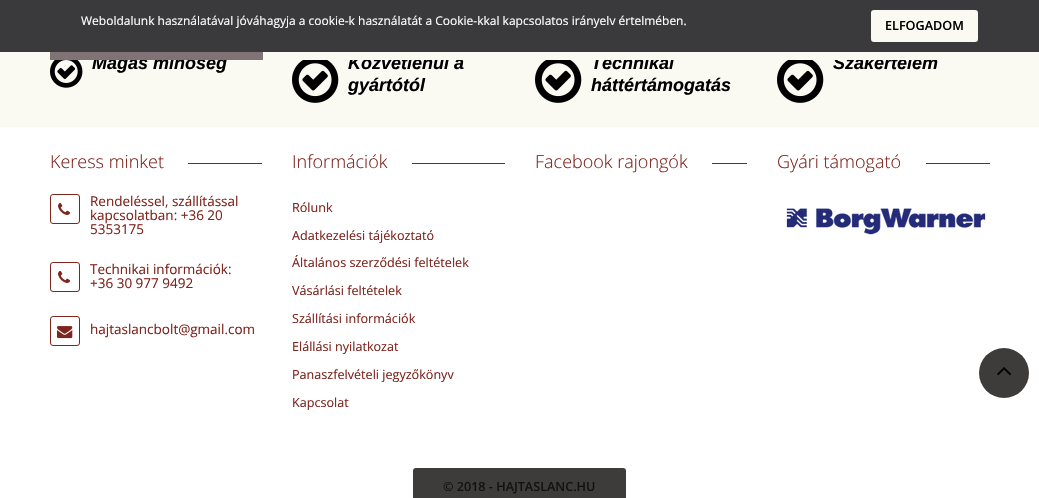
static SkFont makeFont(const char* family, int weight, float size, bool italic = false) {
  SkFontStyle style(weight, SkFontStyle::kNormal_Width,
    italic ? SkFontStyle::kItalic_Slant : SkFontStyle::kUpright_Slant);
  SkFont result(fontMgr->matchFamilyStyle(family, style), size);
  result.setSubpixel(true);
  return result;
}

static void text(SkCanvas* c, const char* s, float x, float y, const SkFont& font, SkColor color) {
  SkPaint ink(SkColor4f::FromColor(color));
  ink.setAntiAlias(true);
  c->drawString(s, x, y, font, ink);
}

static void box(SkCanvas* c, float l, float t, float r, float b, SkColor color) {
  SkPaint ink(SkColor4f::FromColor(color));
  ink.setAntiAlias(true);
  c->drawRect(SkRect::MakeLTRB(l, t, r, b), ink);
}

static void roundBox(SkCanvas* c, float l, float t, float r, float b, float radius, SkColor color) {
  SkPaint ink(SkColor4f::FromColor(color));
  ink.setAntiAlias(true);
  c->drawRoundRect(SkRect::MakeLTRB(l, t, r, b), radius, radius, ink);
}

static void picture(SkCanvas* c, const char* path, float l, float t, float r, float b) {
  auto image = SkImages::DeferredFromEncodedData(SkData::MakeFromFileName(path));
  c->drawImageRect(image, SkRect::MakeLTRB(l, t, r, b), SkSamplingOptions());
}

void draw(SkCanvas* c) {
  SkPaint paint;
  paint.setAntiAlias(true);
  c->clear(0xffffffff);
  box(c, 0, 0, 1039, 52, 0xff3a393b);
  SkFont face1 = makeFont("Open Sans", 400, 12);
  text(c, "Weboldalunk használatával jóváhagyja a cookie-k használatát a Cookie-kkal kapcsolatos irányelv értelmében.", 81, 25, face1, 0xffffffff);
  paint.setColor(0xfffaf9f2);
  c->drawRoundRect(SkRect::MakeLTRB(872, 11, 977, 41), 2, 2, paint);
  paint.setStyle(SkPaint::kStroke_Style);
  paint.setStrokeWidth(2);
  c->drawRoundRect(SkRect::MakeLTRB(872, 11, 977, 41), 2, 2, paint);
  SkFont face2 = makeFont("Open Sans", 600, 12.6f);
  text(c, "ELFOGADOM", 885, 30, face2, 0xff000000);
  box(c, 0, 60, 1039, 127, 0xfffaf9f2);
  SkFont face3 = makeFont("Liberation Sans", 700, 18, true);
  text(c, "Magas minőség", 92, 69, face3, 0xff000000);
  text(c, "Közvetlenül a", 348, 69, face3, 0xff000000);
  text(c, "Technikai", 591, 69, face3, 0xff000000);
  text(c, "Szakértelem", 833, 69, face3, 0xff000000);
  box(c, 0, 52, 1039, 60, 0xfffaf9f2);
  box(c, 50, 52, 263, 60, 0xff807376);
  picture(c, "img_01.png", 50, 60, 83, 88);
  picture(c, "img_02.png", 292, 60, 339, 103);
  text(c, "gyártótól", 348, 91, face3, 0xff000000);
  picture(c, "img_02.png", 535, 60, 582, 103);
  text(c, "háttértámogatás", 591, 91, face3, 0xff000000);
  picture(c, "img_02.png", 777, 60, 824, 103);
  SkFont face4 = makeFont("Open Sans", 300, 18);
  text(c, "Keress minket", 50, 168, face4, 0xff7e251e);
  box(c, 188, 163, 262, 164, 0xff7e251e);
  paint.setStrokeWidth(1);
  paint.setColor(0xff7e251e);
  c->drawRoundRect(SkRect::MakeLTRB(50.5f, 194.5f, 79.5f, 223.5f), 2.5f, 2.5f, paint);
  picture(c, "img_03.png", 58, 203, 70, 215);
  SkFont face5 = makeFont("Open Sans", 400, 13.5f);
  text(c, "Rendeléssel, szállítással", 90, 206, face5, 0xff7e251e);
  text(c, "kapcsolatban: +36 20", 90, 220, face5, 0xff7e251e);
  text(c, "5353175", 90, 234, face5, 0xff7e251e);
  c->drawRoundRect(SkRect::MakeLTRB(50.5f, 262.5f, 79.5f, 291.5f), 2.5f, 2.5f, paint);
  picture(c, "img_03.png", 58, 271, 70, 283);
  text(c, "Technikai információk:", 90, 274, face5, 0xff7e251e);
  text(c, "+36 30 977 9492", 90, 288, face5, 0xff7e251e);
  c->drawRoundRect(SkRect::MakeLTRB(50.5f, 316.5f, 79.5f, 345.5f), 2.5f, 2.5f, paint);
  picture(c, "img_04.png", 57, 326, 73, 339);
  text(c, "hajtaslancbolt@gmail.com", 90, 334, face5, 0xff7e251e);
  text(c, "Információk", 292, 168, face4, 0xff7e251e);
  box(c, 412, 163, 505, 164, 0xff7e251e);
  SkFont face6 = makeFont("Open Sans", 400, 12.6f);
  text(c, "Rólunk", 292, 212, face6, 0xff7e251e);
  text(c, "Adatkezelési tájékoztató", 292, 240, face6, 0xff7e251e);
  text(c, "Általános szerződési feltételek", 292, 267, face6, 0xff7e251e);
  text(c, "Vásárlási feltételek", 292, 295, face6, 0xff7e251e);
  text(c, "Szállítási információk", 292, 323, face6, 0xff7e251e);
  text(c, "Elállási nyilatkozat", 292, 351, face6, 0xff7e251e);
  text(c, "Panaszfelvételi jegyzőkönyv", 292, 379, face6, 0xff7e251e);
  text(c, "Kapcsolat", 292, 407, face6, 0xff7e251e);
  text(c, "Facebook rajongók", 535, 168, face4, 0xff7e251e);
  box(c, 712, 163, 747, 164, 0xff7e251e);
  text(c, "Gyári támogató", 777, 168, face4, 0xff7e251e);
  box(c, 926, 163, 990, 164, 0xff7e251e);
  picture(c, "img_05.png", 786, 208, 986, 235);
  roundBox(c, 413, 468, 626, 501, 3, 0xff3d3c3a);
  text(c, "© 2018 - HAJTASLANC.HU", 443, 491, face2, 0xff15120e);
  paint.setStyle(SkPaint::kFill_Style);
  paint.setColor(0xff3d3c3a);
  c->drawCircle(1004, 373, 25, paint);
  picture(c, "img_06.png", 997, 367, 1011, 376);
}
